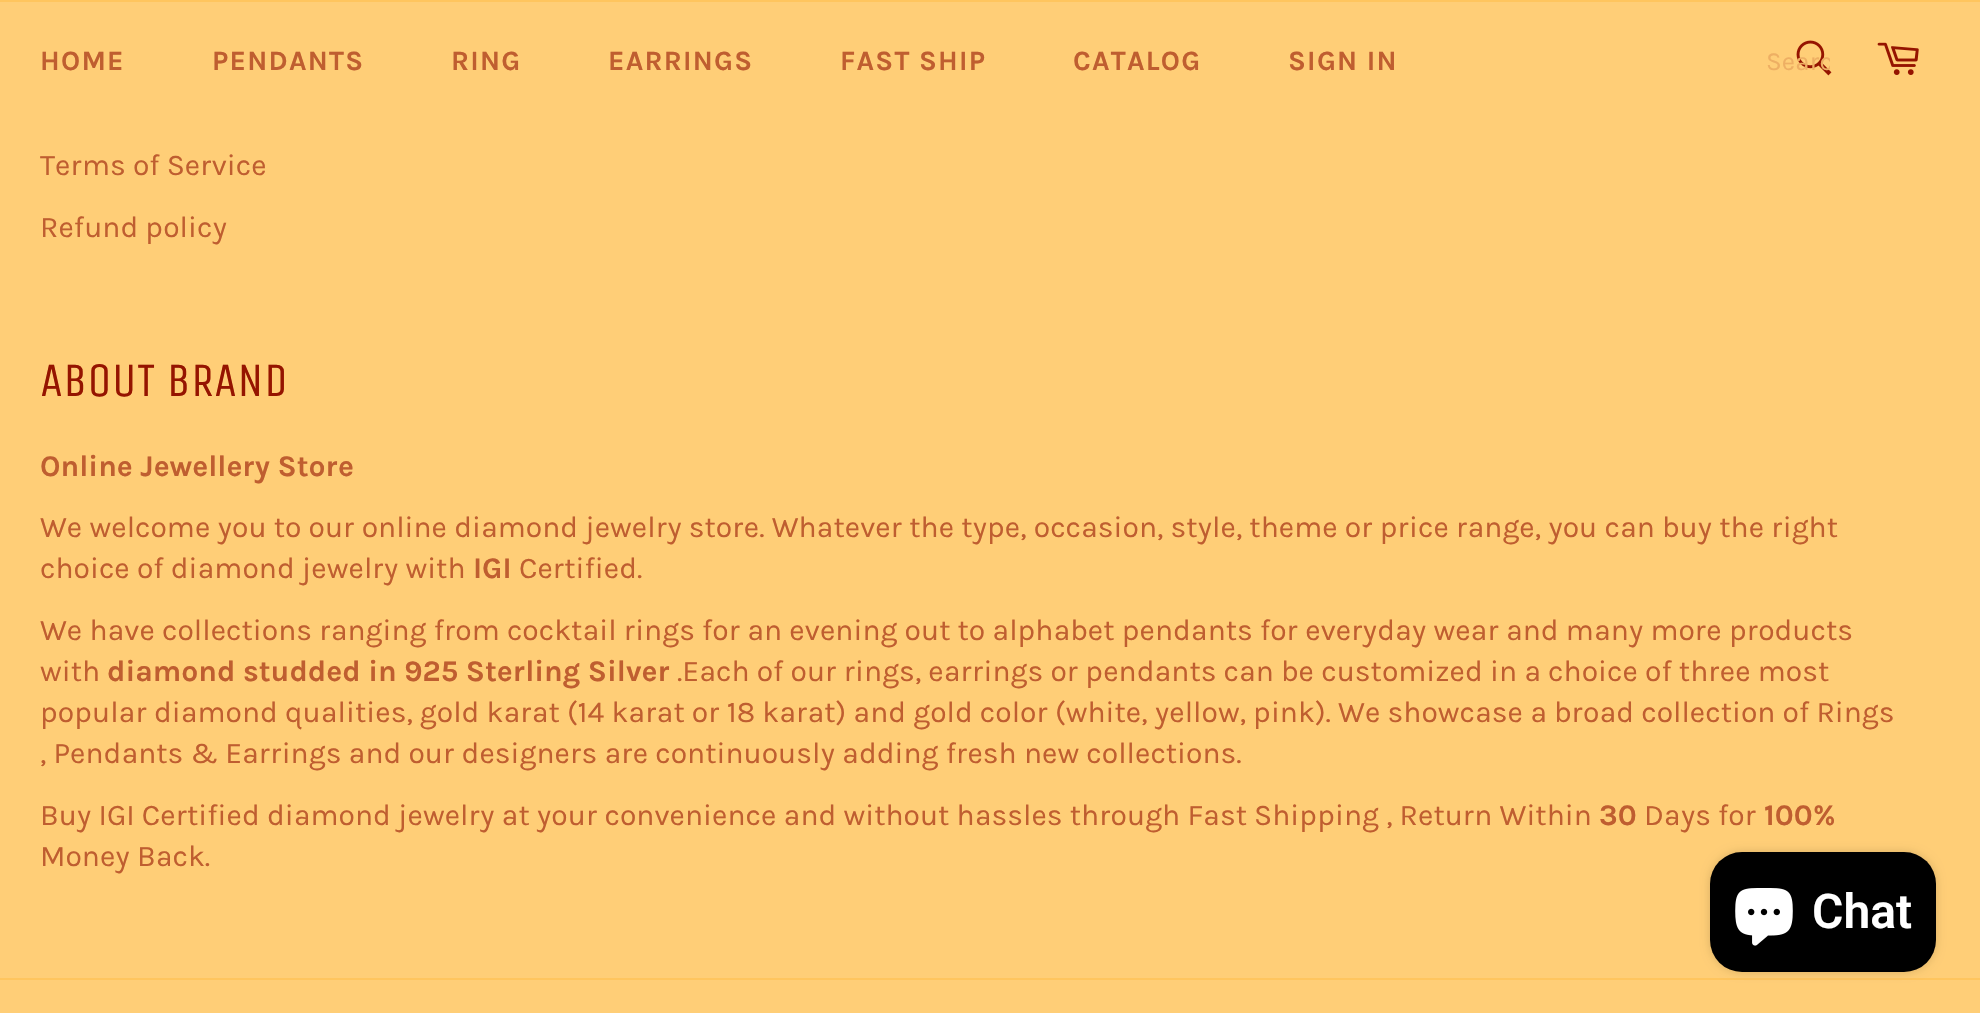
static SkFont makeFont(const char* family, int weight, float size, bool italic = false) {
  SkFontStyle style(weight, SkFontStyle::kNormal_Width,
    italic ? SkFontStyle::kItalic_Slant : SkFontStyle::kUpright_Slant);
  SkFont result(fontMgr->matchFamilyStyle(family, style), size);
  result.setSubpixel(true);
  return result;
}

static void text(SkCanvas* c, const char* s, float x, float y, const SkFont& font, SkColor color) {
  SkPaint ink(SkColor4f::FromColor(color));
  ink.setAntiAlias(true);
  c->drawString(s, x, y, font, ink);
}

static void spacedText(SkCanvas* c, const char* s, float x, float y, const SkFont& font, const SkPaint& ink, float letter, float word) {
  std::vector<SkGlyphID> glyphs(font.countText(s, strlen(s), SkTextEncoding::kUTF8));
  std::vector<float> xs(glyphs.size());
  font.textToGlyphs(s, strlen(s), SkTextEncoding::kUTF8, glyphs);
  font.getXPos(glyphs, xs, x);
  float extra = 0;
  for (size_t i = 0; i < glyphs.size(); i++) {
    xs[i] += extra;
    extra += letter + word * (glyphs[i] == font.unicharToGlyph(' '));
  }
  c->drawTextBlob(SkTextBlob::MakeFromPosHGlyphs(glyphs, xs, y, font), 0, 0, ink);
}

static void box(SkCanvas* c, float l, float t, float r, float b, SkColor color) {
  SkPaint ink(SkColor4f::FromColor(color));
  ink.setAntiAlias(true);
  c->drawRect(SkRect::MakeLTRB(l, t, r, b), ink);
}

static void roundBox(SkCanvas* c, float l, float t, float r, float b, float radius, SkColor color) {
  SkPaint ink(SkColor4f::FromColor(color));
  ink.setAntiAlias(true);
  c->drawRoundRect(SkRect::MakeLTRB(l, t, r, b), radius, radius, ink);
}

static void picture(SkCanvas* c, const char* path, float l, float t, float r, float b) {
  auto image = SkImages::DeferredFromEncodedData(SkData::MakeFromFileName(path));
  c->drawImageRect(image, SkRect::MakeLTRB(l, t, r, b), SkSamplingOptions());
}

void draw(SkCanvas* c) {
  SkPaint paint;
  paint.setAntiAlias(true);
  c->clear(0xffffce77);
  box(c, 0, 0, 1980, 2, 0xffffc55e);
  SkFont face1 = makeFont("Karla", 700, 28);
  paint.setColor(0xffbf5e30);
  spacedText(c, "HOME", 40, 70, face1, paint, 1.25f, 0);
  spacedText(c, "PENDANTS", 212, 70, face1, paint, 1.25f, 0);
  spacedText(c, "RING", 451, 70, face1, paint, 1.25f, 0);
  spacedText(c, "EARRINGS", 608, 70, face1, paint, 1.25f, 0);
  spacedText(c, "FAST SHIP", 840, 70, face1, paint, 1.25f, 0);
  spacedText(c, "CATALOG", 1073, 70, face1, paint, 1.25f, 0);
  spacedText(c, "SIGN IN", 1288, 70, face1, paint, 1.25f, 0);
  picture(c, "img_01.png", 1796, 40, 1832, 76);
  c->save();
  c->clipRect(SkRect::MakeLTRB(1766, 46, 1830, 76));
  SkFont face2 = makeFont("Karla", 400, 26);
  text(c, "Searc", 1766, 70, face2, 0xffeeaf63);
  c->restore();
  picture(c, "img_02.png", 1877, 42, 1919, 75);
  SkFont face3 = makeFont("Karla", 400, 30);
  text(c, "Terms of Service", 40, 175, face3, 0xffbf5e30);
  text(c, "Refund policy", 40, 237, face3, 0xffbf5e30);
  SkFont face4 = makeFont("Unica One", 400, 48);
  text(c, "ABOUT BRAND", 40, 396, face4, 0xff951400);
  SkFont face5 = makeFont("Karla", 700, 30);
  text(c, "Online Jewellery Store", 40, 476, face5, 0xffbf5e30);
  text(c, "We welcome you to our online diamond jewelry store. Whatever the type, occasion, style, theme or price range, you can buy the right", 40, 537, face3, 0xffbf5e30);
  text(c, "choice of diamond jewelry with", 40, 578, face3, 0xffbf5e30);
  text(c, "IGI", 473, 578, face5, 0xffbf5e30);
  text(c, "Certified.", 519, 578, face3, 0xffbf5e30);
  text(c, "We have collections ranging from cocktail rings for an evening out to alphabet pendants for everyday wear and many more products", 40, 640, face3, 0xffbf5e30);
  text(c, "with", 40, 681, face3, 0xffbf5e30);
  text(c, "diamond studded in 925 Sterling Silver", 107, 681, face5, 0xffbf5e30);
  text(c, ".Each of our rings, earrings or pendants can be customized in a choice of three most", 677, 681, face3, 0xffbf5e30);
  text(c, "popular diamond qualities, gold karat (14 karat or 18 karat) and gold color (white, yellow, pink). We showcase a broad collection of Rings", 40, 722, face3, 0xffbf5e30);
  text(c, ", Pendants & Earrings and our designers are continuously adding fresh new collections.", 40, 763, face3, 0xffbf5e30);
  text(c, "Buy IGI Certified diamond jewelry at your convenience and without hassles through Fast Shipping , Return Within", 40, 825, face3, 0xffbf5e30);
  text(c, "30", 1599, 825, face5, 0xffbf5e30);
  text(c, "Days for", 1644, 825, face3, 0xffbf5e30);
  text(c, "100%", 1764, 825, face5, 0xffbf5e30);
  text(c, "Money Back.", 40, 866, face3, 0xffbf5e30);
  box(c, 0, 978, 1980, 980, 0xffffc55e);
  paint.setColor(0x26000000);
  paint.setMaskFilter(SkMaskFilter::MakeBlur(kNormal_SkBlurStyle, 5));
  c->drawRoundRect(SkRect::MakeLTRB(1710, 852, 1936, 972), 32, 32, paint);
  paint.setMaskFilter(nullptr);
  roundBox(c, 1710, 852, 1936, 972, 32, 0xff000000);
  picture(c, "img_03.png", 1735, 888, 1793, 946);
  SkFont face6 = makeFont("Roboto", 600, 48);
  text(c, "Chat", 1812, 928, face6, 0xffffffff);
}
